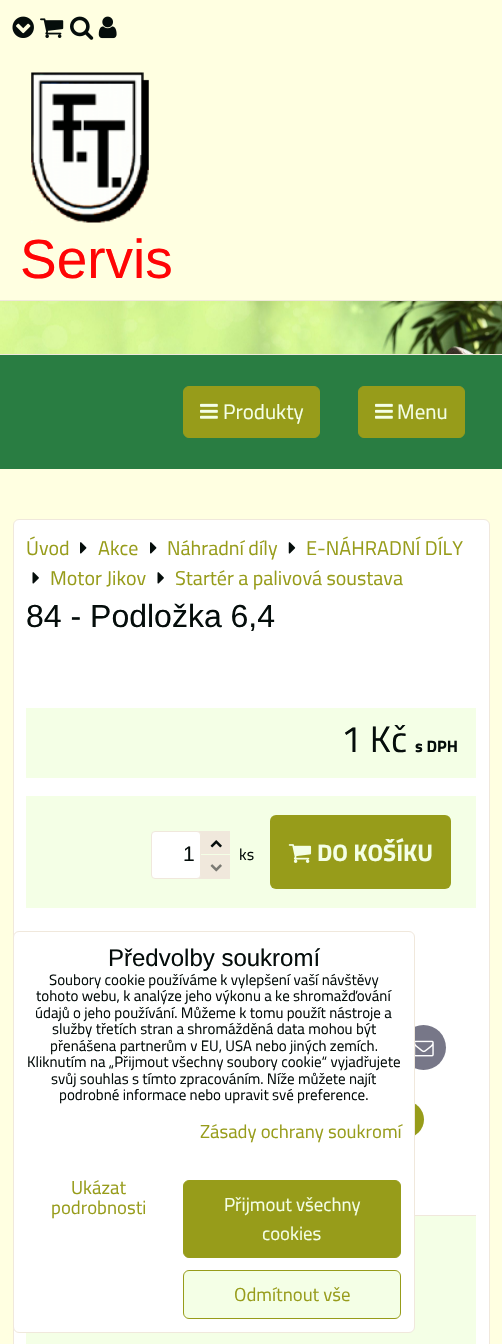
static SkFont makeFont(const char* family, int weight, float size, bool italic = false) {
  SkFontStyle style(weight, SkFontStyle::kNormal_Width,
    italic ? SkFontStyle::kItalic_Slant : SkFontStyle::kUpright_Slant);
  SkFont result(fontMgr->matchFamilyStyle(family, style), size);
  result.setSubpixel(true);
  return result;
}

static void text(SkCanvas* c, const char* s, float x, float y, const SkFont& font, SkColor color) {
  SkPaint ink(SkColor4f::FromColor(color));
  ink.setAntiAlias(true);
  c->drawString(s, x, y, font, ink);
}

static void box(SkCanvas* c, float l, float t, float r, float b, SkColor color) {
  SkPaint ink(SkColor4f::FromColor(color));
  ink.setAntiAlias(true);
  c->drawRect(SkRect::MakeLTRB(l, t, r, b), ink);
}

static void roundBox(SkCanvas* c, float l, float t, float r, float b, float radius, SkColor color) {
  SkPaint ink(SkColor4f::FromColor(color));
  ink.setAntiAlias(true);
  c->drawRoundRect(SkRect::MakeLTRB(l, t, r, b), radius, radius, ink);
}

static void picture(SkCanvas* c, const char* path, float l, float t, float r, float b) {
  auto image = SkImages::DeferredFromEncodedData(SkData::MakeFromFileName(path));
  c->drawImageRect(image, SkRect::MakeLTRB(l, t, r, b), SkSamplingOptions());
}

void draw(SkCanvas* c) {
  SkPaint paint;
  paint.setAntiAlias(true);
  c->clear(0xffffffe1);
  picture(c, "img_01.png", 12, 16, 34, 38);
  picture(c, "img_02.png", 40, 18, 64, 38);
  picture(c, "img_03.png", 70, 16, 94, 40);
  picture(c, "img_04.png", 98, 16, 117, 39);
  picture(c, "img_05.png", 31, 72, 149, 223);
  SkFont face1 = makeFont("Liberation Sans", 400, 55);
  text(c, "Servis", 20, 278, face1, 0xffff0505);
  box(c, 0, 300, 502, 301, 0xfff0e8dc);
  box(c, 0, 354, 502, 355, 0xfff0e8dc);
  picture(c, "img_06.png", 0, 301, 502, 354);
  box(c, 0, 355, 502, 469, 0xff297d42);
  paint.setColor(0xff979c1a);
  c->drawRoundRect(SkRect::MakeLTRB(183.5f, 386.5f, 319.5f, 437.5f), 5.5f, 5.5f, paint);
  paint.setStyle(SkPaint::kStroke_Style);
  paint.setStrokeWidth(1);
  c->drawRoundRect(SkRect::MakeLTRB(183.5f, 386.5f, 319.5f, 437.5f), 5.5f, 5.5f, paint);
  picture(c, "img_07.png", 200, 403, 218, 419);
  SkFont face2 = makeFont("Titillium Web", 400, 21);
  text(c, "Produkty", 223, 419, face2, 0xfff4ffe6);
  paint.setStyle(SkPaint::kFill_Style);
  c->drawRoundRect(SkRect::MakeLTRB(358.5f, 386.5f, 464.5f, 437.5f), 5.5f, 5.5f, paint);
  paint.setStyle(SkPaint::kStroke_Style);
  c->drawRoundRect(SkRect::MakeLTRB(358.5f, 386.5f, 464.5f, 437.5f), 5.5f, 5.5f, paint);
  picture(c, "img_07.png", 375, 403, 393, 419);
  text(c, "Menu", 397, 419, face2, 0xfff4ffe6);
  paint.setStyle(SkPaint::kFill_Style);
  paint.setColor(0xffffffff);
  c->drawRoundRect(SkRect::MakeLTRB(13.5f, 519.5f, 489.5f, 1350.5f), 5.5f, 5.5f, paint);
  paint.setStyle(SkPaint::kStroke_Style);
  paint.setColor(0xfff0e8dc);
  c->drawRoundRect(SkRect::MakeLTRB(13.5f, 519.5f, 489.5f, 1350.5f), 5.5f, 5.5f, paint);
  SkFont face3 = makeFont("Titillium Web", 400, 20);
  text(c, "Úvod", 26, 555, face3, 0xff979c1a);
  picture(c, "img_08.png", 80, 542, 87, 554);
  text(c, "Akce", 98, 555, face3, 0xff979c1a);
  picture(c, "img_08.png", 150, 542, 157, 554);
  text(c, "Náhradní díly", 167, 555, face3, 0xff979c1a);
  picture(c, "img_09.png", 288, 542, 296, 554);
  text(c, "E-NÁHRADNÍ DÍLY", 306, 555, face3, 0xff979c1a);
  picture(c, "img_10.png", 32, 572, 39, 584);
  text(c, "Motor Jikov", 50, 585, face3, 0xff979c1a);
  picture(c, "img_10.png", 157, 572, 164, 584);
  text(c, "Startér a palivová soustava", 175, 585, face3, 0xff979c1a);
  SkFont face4 = makeFont("Liberation Sans", 400, 32);
  text(c, "84 - Podložka 6,4", 26, 627, face4, 0xff050d0b);
  box(c, 26, 708, 476, 778, 0xfff4ffe6);
  SkFont face5 = makeFont("Titillium Web", 400, 37);
  text(c, "1 Kč", 341, 752, face5, 0xff050d0b);
  SkFont face6 = makeFont("Titillium Web", 700, 16.5f);
  text(c, "s DPH", 415, 752, face6, 0xff050d0b);
  box(c, 26, 796, 476, 908, 0xfff4ffe6);
  box(c, 197, 831, 230, 879, 0xfff0e8dc);
  paint.setStyle(SkPaint::kFill_Style);
  paint.setColor(0xffffffff);
  c->drawRoundRect(SkRect::MakeLTRB(151.5f, 831.5f, 200.5f, 878.5f), 3.5f, 3.5f, paint);
  paint.setStyle(SkPaint::kStroke_Style);
  paint.setColor(0xfff0e8dc);
  c->drawRoundRect(SkRect::MakeLTRB(151.5f, 831.5f, 200.5f, 878.5f), 3.5f, 3.5f, paint);
  SkFont face7 = makeFont("Liberation Sans", 400, 21);
  text(c, "1", 183, 861, face7, 0xff050d0b);
  picture(c, "img_11.png", 210, 840, 222, 848);
  box(c, 201, 854, 230, 855, 0xfff4ffe6);
  picture(c, "img_12.png", 210, 864, 222, 872);
  SkFont face8 = makeFont("Titillium Web", 400, 16);
  text(c, "ks", 239, 860, face8, 0xff050d0b);
  roundBox(c, 270, 815, 451, 889, 6, 0xff979c1a);
  picture(c, "img_13.png", 288, 844, 312, 863);
  SkFont face9 = makeFont("Titillium Web", 700, 24);
  text(c, "DO KOŠÍKU", 317, 861, face9, 0xfff4ffe6);
  paint.setStyle(SkPaint::kFill_Style);
  paint.setColor(0xff777788);
  c->drawCircle(423.5f, 1047.5f, 22.5f, paint);
  picture(c, "img_14.png", 415, 1040, 434, 1057);
  roundBox(c, 386, 1101, 424, 1138, 18.5f, 0xff979c1a);
  box(c, 26, 1216, 476, 1344, 0xfff4ffe6);
  box(c, 415, 1215, 476, 1216, 0xfff0e8dc);
  paint.setColor(0xffffffff);
  c->drawRoundRect(SkRect::MakeLTRB(13.5f, 931.5f, 414.5f, 1332.5f), 5.5f, 5.5f, paint);
  paint.setStyle(SkPaint::kStroke_Style);
  paint.setColor(0xfff0e8dc);
  c->drawRoundRect(SkRect::MakeLTRB(13.5f, 931.5f, 414.5f, 1332.5f), 5.5f, 5.5f, paint);
  SkFont face10 = makeFont("Liberation Sans", 400, 24);
  text(c, "Předvolby soukromí", 108, 966, face10, 0xff050d0b);
  SkFont face11 = makeFont("Titillium Web", 400, 15);
  text(c, "Soubory cookie používáme k vylepšení vaší návštěvy", 49, 985, face11, 0xff050d0b);
  text(c, "tohoto webu, k analýze jeho výkonu a ke shromažďování", 36, 1001, face11, 0xff050d0b);
  text(c, "údajů o jeho používání. Můžeme k tomu použít nástroje a", 35, 1018, face11, 0xff050d0b);
  text(c, "služby třetích stran a shromážděná data mohou být", 52, 1034, face11, 0xff050d0b);
  text(c, "přenášena partnerům v EU, USA nebo jiných zemích.", 50, 1051, face11, 0xff050d0b);
  text(c, "Kliknutím na „Přijmout všechny soubory cookie“ vyjadřujete", 27, 1067, face11, 0xff050d0b);
  text(c, "svůj souhlas s tímto zpracováním. Níže můžete najít", 51, 1084, face11, 0xff050d0b);
  text(c, "podrobné informace nebo upravit své preference.", 59, 1100, face11, 0xff050d0b);
  SkFont face12 = makeFont("Titillium Web", 400, 18.75f);
  text(c, "Zásady ochrany soukromí", 200, 1138, face12, 0xff979c1a);
  text(c, "Ukázat", 71, 1194, face12, 0xff979c1a);
  text(c, "podrobnosti", 51, 1214, face12, 0xff979c1a);
  paint.setStyle(SkPaint::kFill_Style);
  paint.setColor(0xff979c1a);
  c->drawRoundRect(SkRect::MakeLTRB(183.5f, 1180.5f, 400.5f, 1257.5f), 5.5f, 5.5f, paint);
  paint.setStyle(SkPaint::kStroke_Style);
  c->drawRoundRect(SkRect::MakeLTRB(183.5f, 1180.5f, 400.5f, 1257.5f), 5.5f, 5.5f, paint);
  text(c, "Přijmout všechny", 224, 1211, face12, 0xfff4ffe6);
  text(c, "cookies", 262, 1240, face12, 0xfff4ffe6);
  paint.setStyle(SkPaint::kFill_Style);
  paint.setColor(0xfff4ffe6);
  c->drawRoundRect(SkRect::MakeLTRB(183.5f, 1270.5f, 400.5f, 1318.5f), 5.5f, 5.5f, paint);
  paint.setStyle(SkPaint::kStroke_Style);
  paint.setColor(0xff979c1a);
  c->drawRoundRect(SkRect::MakeLTRB(183.5f, 1270.5f, 400.5f, 1318.5f), 5.5f, 5.5f, paint);
  text(c, "Odmítnout vše", 234, 1301, face12, 0xff979c1a);
}
